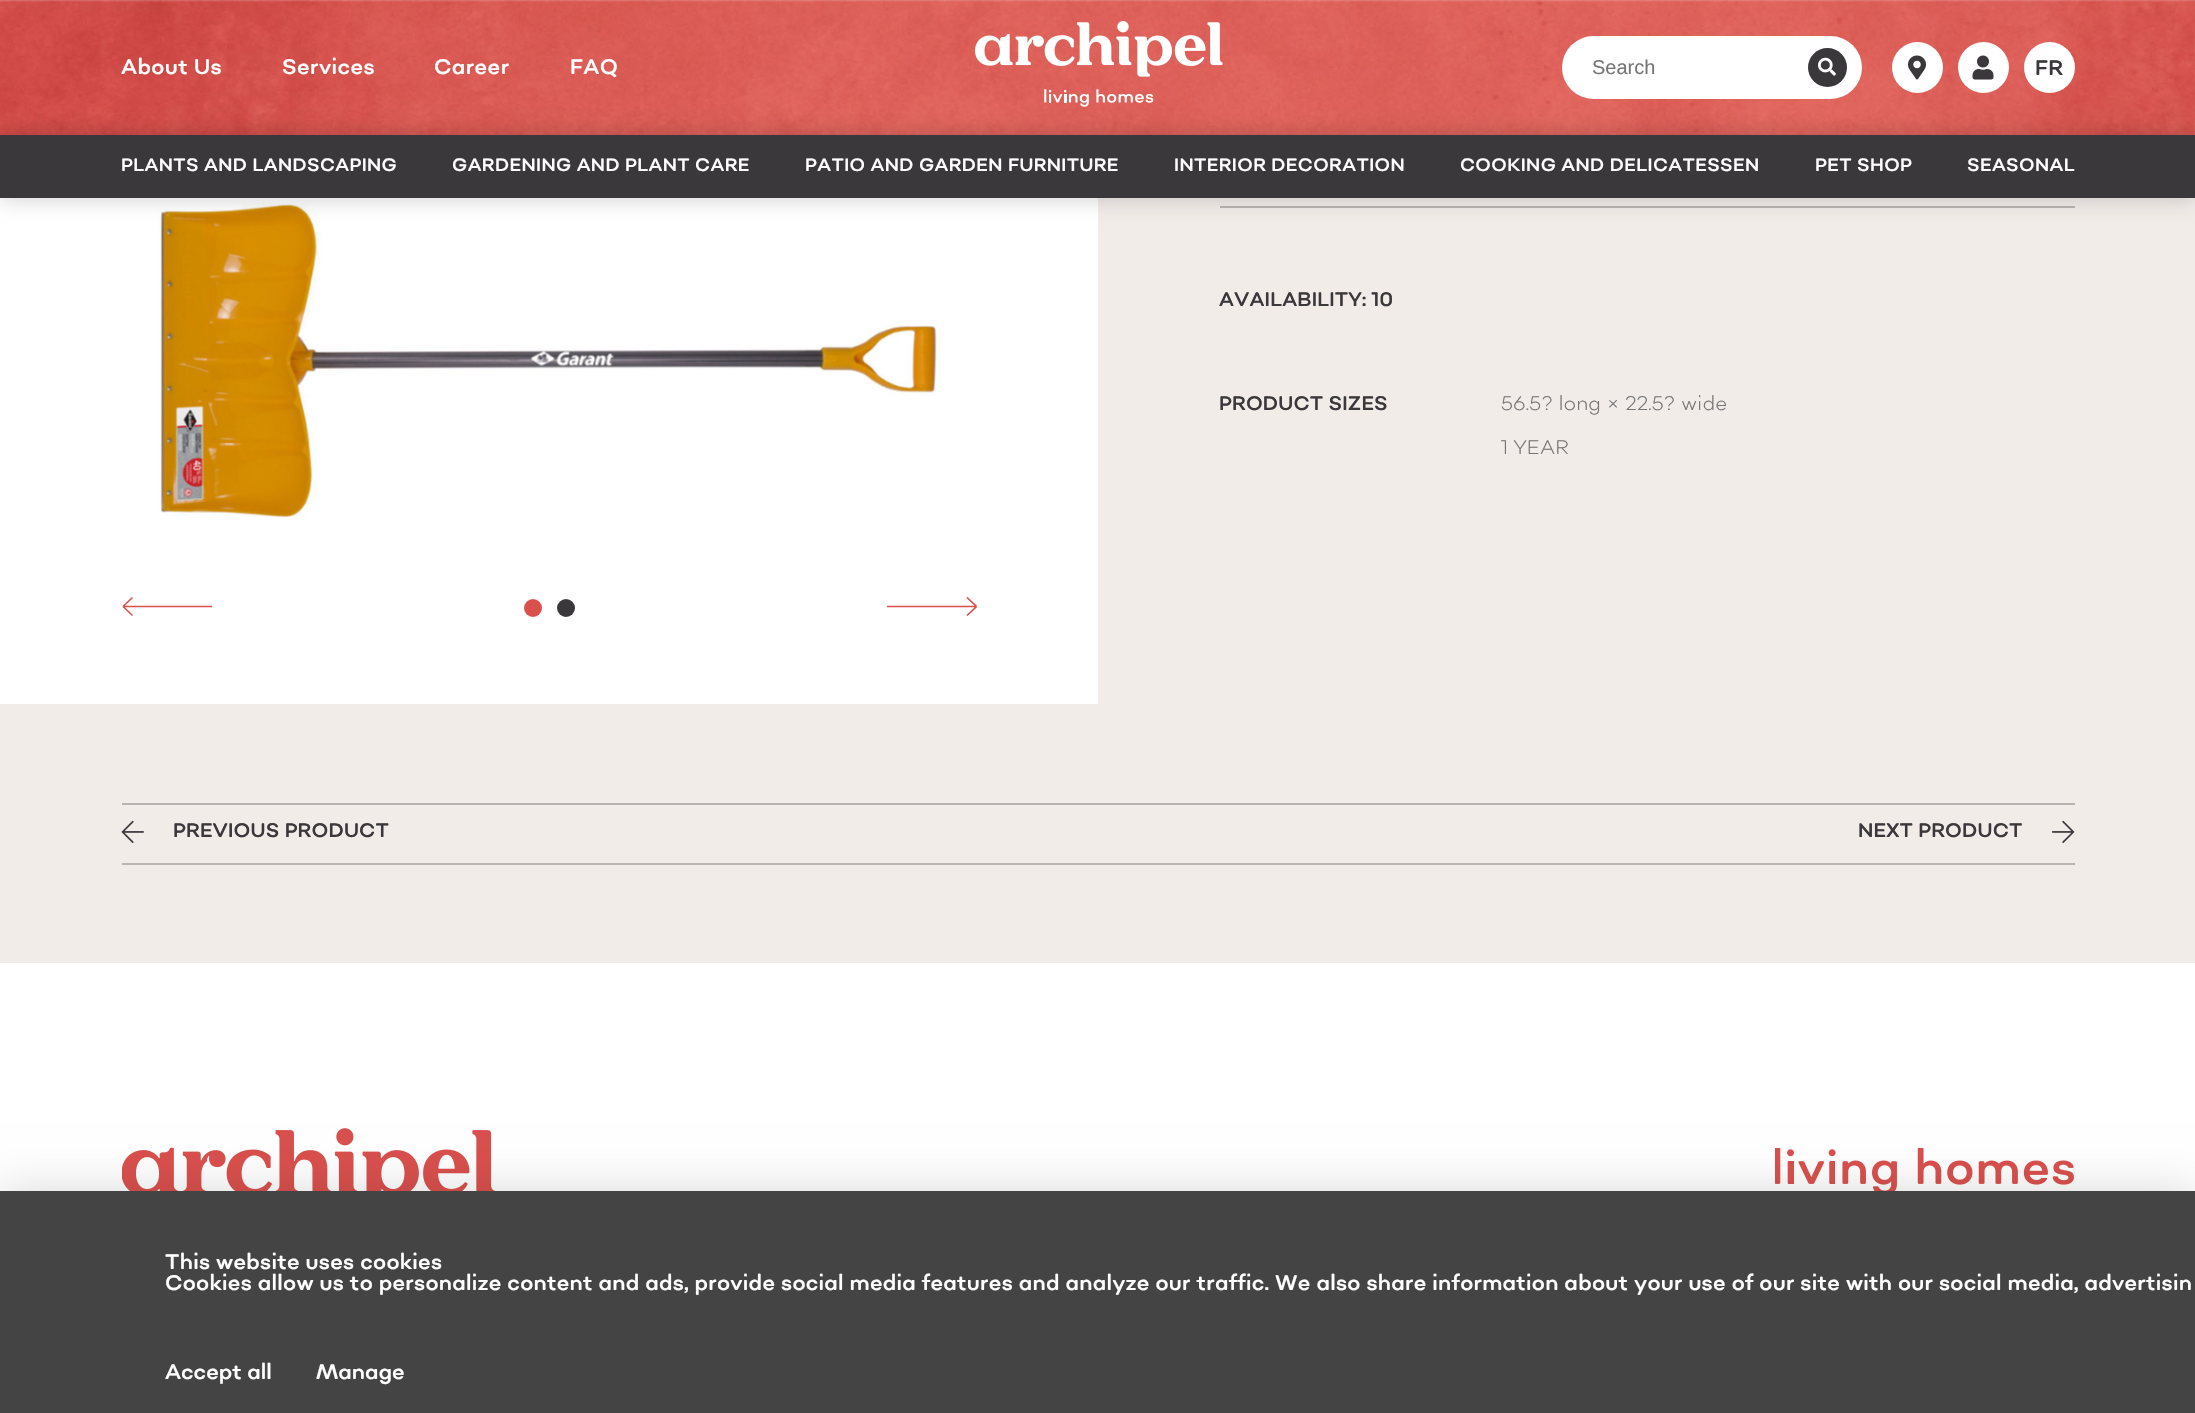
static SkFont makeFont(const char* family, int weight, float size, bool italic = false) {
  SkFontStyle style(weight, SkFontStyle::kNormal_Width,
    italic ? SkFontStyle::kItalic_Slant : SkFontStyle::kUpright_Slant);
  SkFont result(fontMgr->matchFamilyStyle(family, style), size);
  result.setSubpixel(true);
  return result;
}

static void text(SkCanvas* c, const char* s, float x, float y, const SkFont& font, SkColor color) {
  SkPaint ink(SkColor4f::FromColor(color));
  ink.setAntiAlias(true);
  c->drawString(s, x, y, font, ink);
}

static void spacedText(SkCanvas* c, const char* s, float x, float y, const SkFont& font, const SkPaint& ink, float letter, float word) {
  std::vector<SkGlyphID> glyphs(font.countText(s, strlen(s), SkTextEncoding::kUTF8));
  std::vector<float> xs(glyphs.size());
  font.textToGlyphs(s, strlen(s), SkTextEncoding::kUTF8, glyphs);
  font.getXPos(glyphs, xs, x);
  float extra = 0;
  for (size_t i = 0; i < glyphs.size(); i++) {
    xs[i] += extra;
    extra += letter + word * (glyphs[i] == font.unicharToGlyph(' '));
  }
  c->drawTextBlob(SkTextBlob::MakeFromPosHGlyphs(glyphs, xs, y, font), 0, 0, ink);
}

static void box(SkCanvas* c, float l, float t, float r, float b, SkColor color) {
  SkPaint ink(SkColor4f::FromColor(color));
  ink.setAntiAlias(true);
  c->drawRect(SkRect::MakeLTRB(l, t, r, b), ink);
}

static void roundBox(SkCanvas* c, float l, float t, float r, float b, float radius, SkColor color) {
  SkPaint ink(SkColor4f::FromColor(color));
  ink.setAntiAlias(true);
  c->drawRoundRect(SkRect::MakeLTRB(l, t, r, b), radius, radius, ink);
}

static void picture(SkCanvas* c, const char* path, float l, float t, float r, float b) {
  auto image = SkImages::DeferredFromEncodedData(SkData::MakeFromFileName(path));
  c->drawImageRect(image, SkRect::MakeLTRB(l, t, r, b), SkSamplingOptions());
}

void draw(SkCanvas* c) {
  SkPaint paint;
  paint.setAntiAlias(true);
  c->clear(0xffffffff);
  box(c, 1098, 0, 2195, 704, 0xfff2ece9);
  picture(c, "img_01.png", 0, 0, 2195, 135);
  SkFont face1 = makeFont("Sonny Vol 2", 400, 21);
  paint.setColor(0xffffffff);
  spacedText(c, "About Us", 121, 74, face1, paint, 0.4f, 0);
  spacedText(c, "Services", 282, 74, face1, paint, 0.4f, 0);
  spacedText(c, "Career", 434, 74, face1, paint, 0.4f, 0);
  spacedText(c, "FAQ", 570, 74, face1, paint, 0.4f, 0);
  picture(c, "img_06.png", 158, 202, 937, 518);
  box(c, 1220, 206, 2075, 208, 0xffb8b4b2);
  paint.setColor(0x33000000);
  paint.setMaskFilter(SkMaskFilter::MakeBlur(kNormal_SkBlurStyle, 11));
  c->drawRect(SkRect::MakeLTRB(0, 135, 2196, 198), paint);
  paint.setMaskFilter(nullptr);
  picture(c, "img_02.png", 975, 21, 1223, 107);
  roundBox(c, 1562, 36, 1862, 99, 31.5f, 0xffffffff);
  SkFont face2 = makeFont("Liberation Sans", 400, 20);
  text(c, "Search", 1592, 74, face2, 0xff757575);
  paint.setColor(0xff3b383c);
  c->drawCircle(1827.5f, 67.5f, 19.5f, paint);
  picture(c, "img_03.png", 1818, 57, 1836, 76);
  paint.setColor(0xffffffff);
  c->drawCircle(1917.5f, 67.5f, 25.5f, paint);
  picture(c, "img_04.png", 1908, 55, 1926, 80);
  c->drawCircle(1983.5f, 67.5f, 25.5f, paint);
  picture(c, "img_05.png", 1972, 55, 1994, 80);
  c->drawCircle(2049.5f, 67.5f, 25.5f, paint);
  paint.setColor(0xff3b383c);
  spacedText(c, "FR", 2035, 75, face1, paint, 0.4f, 0);
  box(c, 0, 135, 2195, 198, 0xff3b383c);
  SkFont face3 = makeFont("Sonny Vol 2", 400, 18);
  paint.setColor(0xffffffff);
  spacedText(c, "PLANTS AND LANDSCAPING", 121, 171, face3, paint, 0.4f, 0);
  spacedText(c, "GARDENING AND PLANT CARE", 452, 171, face3, paint, 0.4f, 0);
  spacedText(c, "PATIO AND GARDEN FURNITURE", 805, 171, face3, paint, 0.4f, 0);
  spacedText(c, "INTERIOR DECORATION", 1174, 171, face3, paint, 0.4f, 0);
  spacedText(c, "COOKING AND DELICATESSEN", 1460, 171, face3, paint, 0.4f, 0);
  spacedText(c, "PET SHOP", 1815, 171, face3, paint, 0.4f, 0);
  spacedText(c, "SEASONAL", 1967, 171, face3, paint, 0.4f, 0);
  c->save();
  c->clipRect(SkRect::MakeLTRB(122, 596, 212, 617));
  paint.setStyle(SkPaint::kStroke_Style);
  paint.setStrokeWidth(1.6f);
  paint.setColor(0xffd9504d);
  c->drawPath(SkPathBuilder().moveTo(132.5f, 597.5f).lineTo(123, 606.5f).moveTo(123, 606.5f).lineTo(132.5f, 615.5f).moveTo(123, 606.5f).lineTo(279.5f, 606.5f).detach(), paint);
  c->restore();
  paint.setStyle(SkPaint::kFill_Style);
  c->drawCircle(533, 608, 9, paint);
  paint.setColor(0xff3b383c);
  c->drawCircle(566, 608, 9, paint);
  c->save();
  c->clipRect(SkRect::MakeLTRB(887, 596, 977, 617));
  paint.setStyle(SkPaint::kStroke_Style);
  paint.setColor(0xffd9504d);
  c->drawPath(SkPathBuilder().moveTo(967, 597.5f).lineTo(976.5f, 606.5f).moveTo(976.5f, 606.5f).lineTo(967, 615.5f).moveTo(976.5f, 606.5f).lineTo(820, 606.5f).detach(), paint);
  c->restore();
  SkFont face4 = makeFont("Sonny Vol 2", 400, 19.5f);
  paint.setStyle(SkPaint::kFill_Style);
  paint.setColor(0xff3b383c);
  spacedText(c, "AVAILABILITY: 10", 1219, 306, face4, paint, 0.15f, 0);
  spacedText(c, "PRODUCT SIZES", 1219, 410, face4, paint, 0.15f, 0);
  SkFont face5 = makeFont("Sonny Vol 2", 300, 19.5f);
  paint.setColor(0xff757575);
  spacedText(c, "56.5? long × 22.5? wide", 1501, 410, face5, paint, 0.15f, 0);
  spacedText(c, "1 YEAR", 1501, 454, face5, paint, 0.15f, 0);
  box(c, 0, 704, 2195, 963, 0xfff2ece9);
  box(c, 122, 803, 2075, 805, 0xffb8b4b2);
  picture(c, "img_07.png", 121, 820, 144, 843);
  paint.setColor(0xff3b383c);
  spacedText(c, "PREVIOUS PRODUCT", 173, 837, face4, paint, 0.15f, 0);
  spacedText(c, "NEXT PRODUCT", 1858, 837, face4, paint, 0.15f, 0);
  picture(c, "img_08.png", 2052, 820, 2075, 843);
  box(c, 122, 863, 2075, 865, 0xffb8b4b2);
  picture(c, "img_09.png", 122, 1128, 495, 1191);
  picture(c, "img_10.png", 1775, 1148, 2074, 1191);
  paint.setColor(0x26000000);
  paint.setMaskFilter(SkMaskFilter::MakeBlur(kNormal_SkBlurStyle, 22.5f));
  c->drawRect(SkRect::MakeLTRB(0, 1191, 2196, 1413), paint);
  paint.setMaskFilter(nullptr);
  box(c, 0, 1191, 2195, 1413, 0xff444444);
  paint.setColor(0xffffffff);
  spacedText(c, "This website uses cookies", 165, 1269, face1, paint, 0.26f, 0);
  spacedText(c, "Cookies allow us to personalize content and ads, provide social media features and analyze our traffic. We also share information about your use of our site with our social media, advertisin", 165, 1290, face1, paint, 0.26f, 0);
  text(c, "Accept all", 165, 1379, face1, 0xffffffff);
  text(c, "Manage", 316, 1379, face1, 0xffffffff);
}
